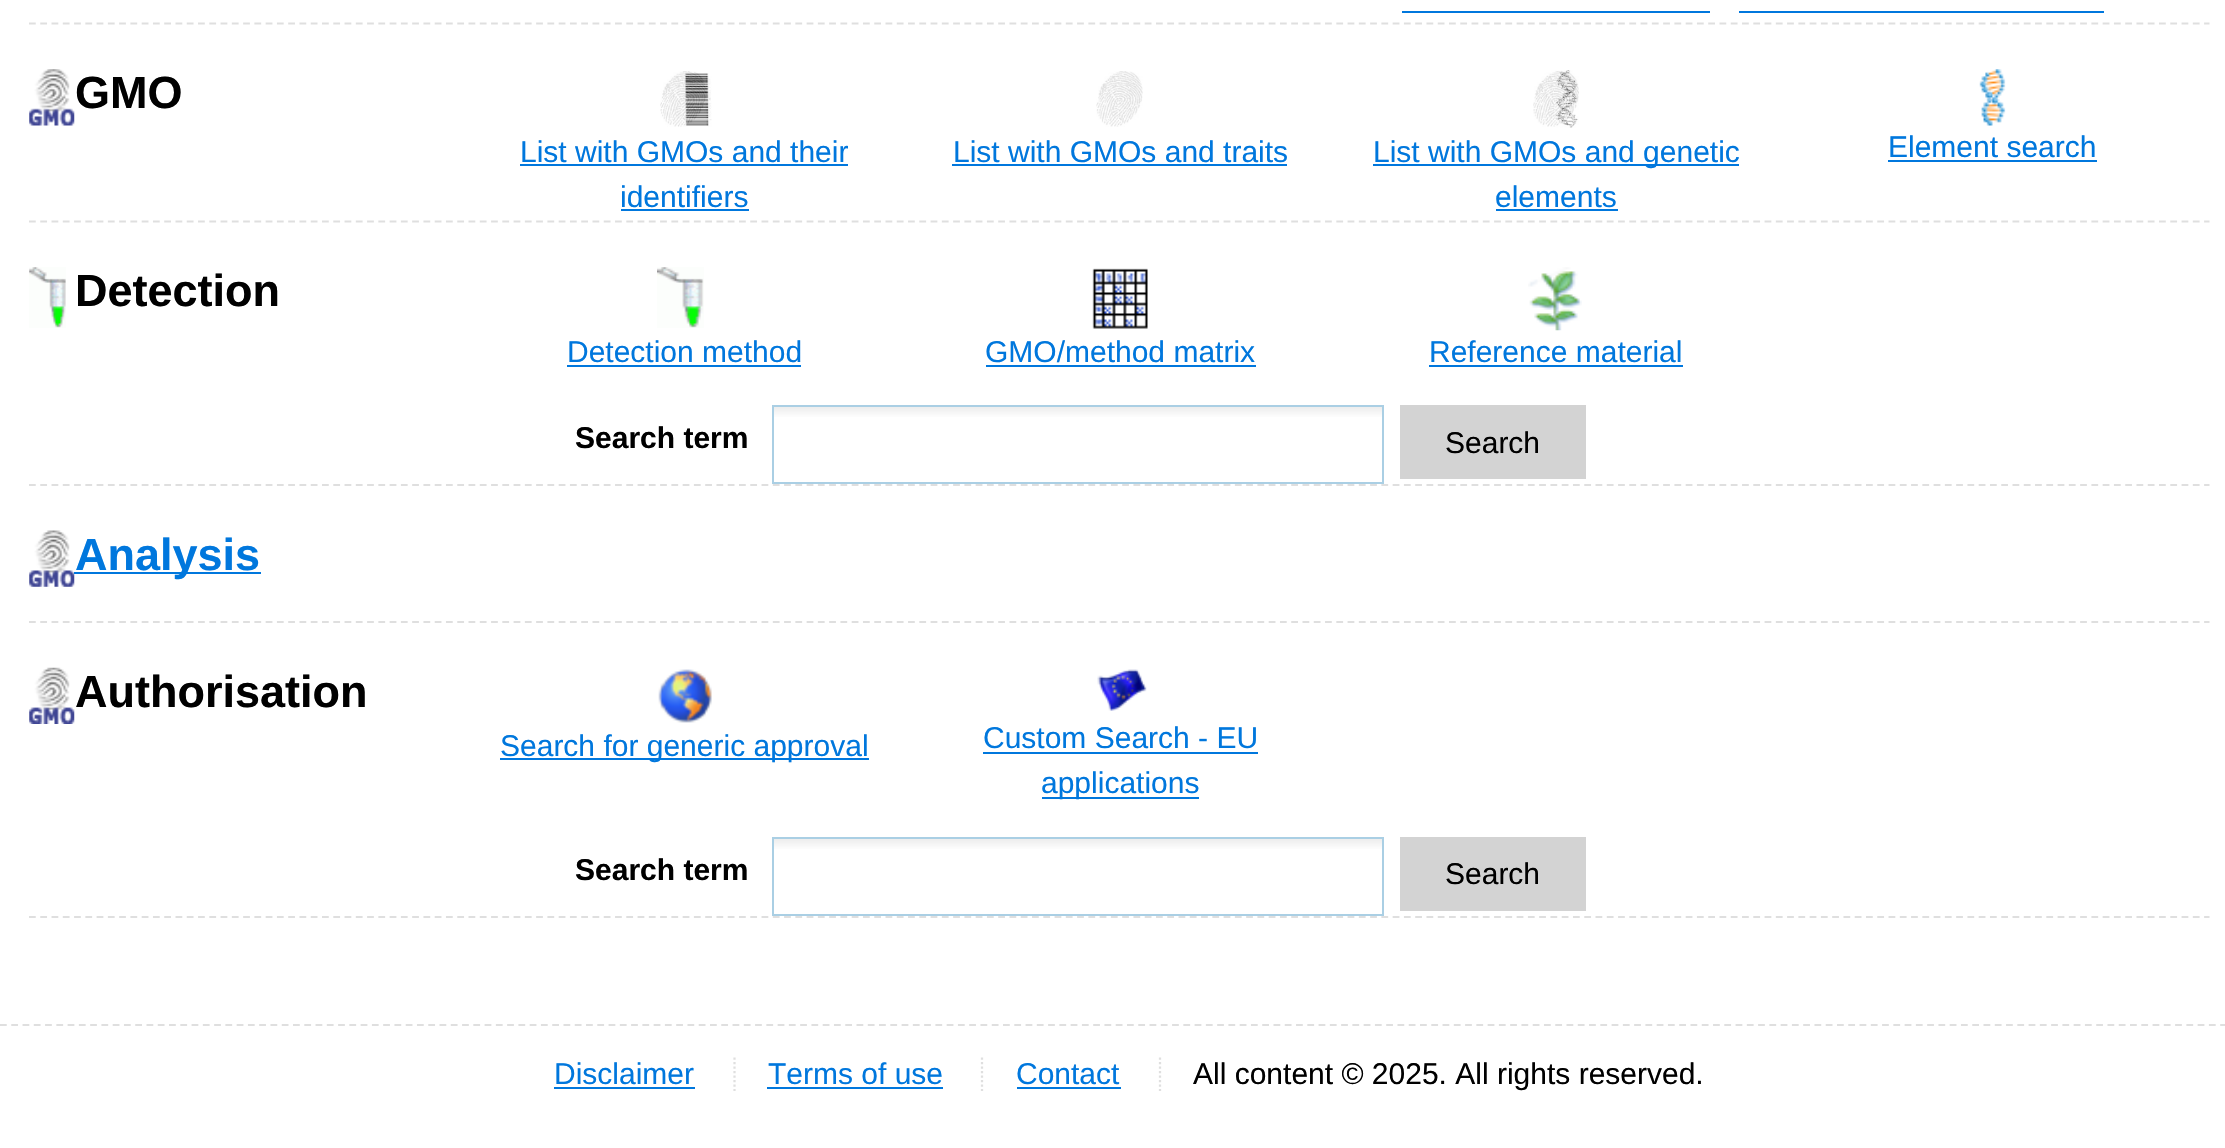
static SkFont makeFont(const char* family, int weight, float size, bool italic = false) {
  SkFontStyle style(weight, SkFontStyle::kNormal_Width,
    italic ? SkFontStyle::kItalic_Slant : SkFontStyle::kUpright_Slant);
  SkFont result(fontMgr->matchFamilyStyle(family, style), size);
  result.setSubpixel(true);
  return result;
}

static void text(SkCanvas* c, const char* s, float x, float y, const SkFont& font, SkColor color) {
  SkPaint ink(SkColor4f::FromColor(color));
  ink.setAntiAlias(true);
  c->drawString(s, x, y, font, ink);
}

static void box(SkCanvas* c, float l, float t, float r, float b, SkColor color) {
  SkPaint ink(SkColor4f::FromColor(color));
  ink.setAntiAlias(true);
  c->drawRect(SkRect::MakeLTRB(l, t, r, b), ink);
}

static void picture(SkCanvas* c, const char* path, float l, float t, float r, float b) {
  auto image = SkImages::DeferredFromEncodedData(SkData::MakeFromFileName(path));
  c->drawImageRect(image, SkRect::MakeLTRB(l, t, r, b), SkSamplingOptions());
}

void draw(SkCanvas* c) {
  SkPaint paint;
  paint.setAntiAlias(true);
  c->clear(0xffffffff);
  paint.setStyle(SkPaint::kStroke_Style);
  paint.setStrokeWidth(2.2f);
  paint.setColor(0xffdfdfdf);
  paint.setPathEffect(SkDashPathEffect::Make({{6.75f, 4.52f}}, 0));
  c->drawPath(SkPathBuilder().moveTo(29, 23.5f).lineTo(2209.5f, 23.5f).detach(), paint);
  paint.setPathEffect(nullptr);
  box(c, 1402, 11, 1710, 13, 0xff0077dd);
  box(c, 1739, 11, 2104, 13, 0xff0077dd);
  paint.setPathEffect(SkDashPathEffect::Make({{6.75f, 4.52f}}, 0));
  c->drawPath(SkPathBuilder().moveTo(29, 221.5f).lineTo(2209.5f, 221.5f).detach(), paint);
  paint.setPathEffect(nullptr);
  picture(c, "img_01.png", 29, 69, 75, 126);
  SkFont face1 = makeFont("Liberation Sans", 700, 45);
  text(c, "GMO", 75, 108, face1, 0xff000000);
  picture(c, "img_02.png", 660, 71, 712, 127);
  SkFont face2 = makeFont("Liberation Sans", 400, 30);
  text(c, "List with GMOs and their", 520, 162, face2, 0xff0077dd);
  box(c, 520, 164, 848, 166, 0xff0077dd);
  text(c, "identifiers", 620, 207, face2, 0xff0077dd);
  box(c, 621, 209, 749, 211, 0xff0077dd);
  picture(c, "img_03.png", 1096, 71, 1143, 127);
  text(c, "List with GMOs and traits", 953, 162, face2, 0xff0077dd);
  box(c, 952, 164, 1287, 166, 0xff0077dd);
  picture(c, "img_04.png", 1533, 70, 1579, 128);
  box(c, 1373, 164, 1739, 166, 0xff0077dd);
  text(c, "List with GMOs and genetic", 1373, 162, face2, 0xff0077dd);
  text(c, "elements", 1495, 207, face2, 0xff0077dd);
  box(c, 1496, 209, 1618, 211, 0xff0077dd);
  picture(c, "img_05.png", 1979, 69, 2006, 126);
  text(c, "Element search", 1888, 157, face2, 0xff0077dd);
  box(c, 1888, 160, 2097, 162, 0xff0077dd);
  paint.setPathEffect(SkDashPathEffect::Make({{6.75f, 4.52f}}, 0));
  c->drawPath(SkPathBuilder().moveTo(29, 485).lineTo(2209.5f, 485).detach(), paint);
  paint.setPathEffect(nullptr);
  picture(c, "img_06.png", 29, 267, 66, 328);
  text(c, "Detection", 75, 306, face1, 0xff000000);
  picture(c, "img_07.png", 657, 267, 704, 328);
  text(c, "Detection method", 567, 362, face2, 0xff0077dd);
  box(c, 567, 365, 801, 367, 0xff0077dd);
  picture(c, "img_08.png", 1092, 268, 1148, 329);
  text(c, "GMO/method matrix", 985, 362, face2, 0xff0077dd);
  box(c, 986, 365, 1256, 367, 0xff0077dd);
  picture(c, "img_09.png", 1528, 267, 1582, 331);
  text(c, "Reference material", 1429, 362, face2, 0xff0077dd);
  box(c, 1429, 365, 1683, 367, 0xff0077dd);
  SkFont face3 = makeFont("Liberation Sans", 700, 30);
  text(c, "Search term", 575, 448, face3, 0xff000000);
  paint.setStyle(SkPaint::kFill_Style);
  {
    const SkColor colors[] = {0xffeeeeee, 0xffffffff};
    const float stops[] = {0.01f, 0.15f};
    const SkPoint ends[] = {{1078, 407}, {1078, 482}};
    paint.setShader(SkGradientShader::MakeLinear(ends, colors, stops, 2, SkTileMode::kClamp));
    paint.setAlpha(255);
  }
  c->drawRect(SkRect::MakeLTRB(774, 407, 1382, 417), paint);
  paint.setStyle(SkPaint::kStroke_Style);
  paint.setStrokeWidth(2);
  paint.setShader(nullptr);
  paint.setColor(0xffaacfe4);
  c->drawRect(SkRect::MakeLTRB(773, 406, 1383, 483), paint);
  box(c, 1400, 405, 1586, 479, 0xffd3d3d3);
  text(c, "Search", 1445, 453, face2, 0xff000000);
  paint.setStrokeWidth(2.2f);
  paint.setColor(0xffdfdfdf);
  paint.setPathEffect(SkDashPathEffect::Make({{6.75f, 4.52f}}, 0));
  c->drawPath(SkPathBuilder().moveTo(29, 622).lineTo(2209.5f, 622).detach(), paint);
  paint.setPathEffect(nullptr);
  picture(c, "img_10.png", 29, 530, 75, 587);
  box(c, 74, 572, 261, 574, 0xff0077dd);
  text(c, "Analysis", 75, 570, face1, 0xff0077dd);
  paint.setPathEffect(SkDashPathEffect::Make({{6.75f, 4.52f}}, 0));
  c->drawPath(SkPathBuilder().moveTo(29, 917).lineTo(2209.5f, 917).detach(), paint);
  paint.setPathEffect(nullptr);
  picture(c, "img_11.png", 29, 667, 75, 724);
  text(c, "Authorisation", 75, 707, face1, 0xff000000);
  picture(c, "img_12.png", 658, 669, 712, 723);
  box(c, 500, 758, 869, 760, 0xff0077dd);
  text(c, "Search for generic approval", 500, 756, face2, 0xff0077dd);
  picture(c, "img_13.png", 1097, 669, 1147, 711);
  text(c, "Custom Search - EU", 983, 748, face2, 0xff0077dd);
  box(c, 983, 752, 1258, 754, 0xff0077dd);
  box(c, 1042, 797, 1199, 799, 0xff0077dd);
  text(c, "applications", 1041, 793, face2, 0xff0077dd);
  text(c, "Search term", 575, 880, face3, 0xff000000);
  paint.setStyle(SkPaint::kFill_Style);
  {
    const SkColor colors[] = {0xffeeeeee, 0xffffffff};
    const float stops[] = {0.01f, 0.15f};
    const SkPoint ends[] = {{1078, 839}, {1078, 914}};
    paint.setShader(SkGradientShader::MakeLinear(ends, colors, stops, 2, SkTileMode::kClamp));
    paint.setAlpha(255);
  }
  c->drawRect(SkRect::MakeLTRB(774, 839, 1382, 849), paint);
  paint.setStyle(SkPaint::kStroke_Style);
  paint.setStrokeWidth(2);
  paint.setShader(nullptr);
  paint.setColor(0xffaacfe4);
  c->drawRect(SkRect::MakeLTRB(773, 838, 1383, 915), paint);
  box(c, 1400, 837, 1586, 911, 0xffd3d3d3);
  text(c, "Search", 1445, 884, face2, 0xff000000);
  paint.setStrokeWidth(2.2f);
  paint.setColor(0xffdfdfdf);
  paint.setPathEffect(SkDashPathEffect::Make({{6.75f, 4.52f}}, 0));
  c->drawPath(SkPathBuilder().moveTo(0, 1025).lineTo(2225, 1025).detach(), paint);
  paint.setPathEffect(nullptr);
  text(c, "Disclaimer", 554, 1084, face2, 0xff0077dd);
  box(c, 554, 1087, 695, 1089, 0xff0077dd);
  text(c, "Terms of use", 768, 1084, face2, 0xff0077dd);
  paint.setPathEffect(SkDashPathEffect::Make({{2.25f, 2.25f}}, 0));
  c->drawPath(SkPathBuilder().moveTo(734.5f, 1057.5f).lineTo(734.5f, 1091).detach(), paint);
  paint.setPathEffect(nullptr);
  box(c, 767, 1087, 943, 1089, 0xff0077dd);
  text(c, "Contact", 1016, 1084, face2, 0xff0077dd);
  paint.setPathEffect(SkDashPathEffect::Make({{2.25f, 2.25f}}, 0));
  c->drawPath(SkPathBuilder().moveTo(982, 1057.5f).lineTo(982, 1091).detach(), paint);
  paint.setPathEffect(nullptr);
  box(c, 1017, 1087, 1121, 1089, 0xff0077dd);
  text(c, "All content © 2025. All rights reserved.", 1193, 1084, face2, 0xff000000);
  paint.setPathEffect(SkDashPathEffect::Make({{2.25f, 2.25f}}, 0));
  c->drawPath(SkPathBuilder().moveTo(1160, 1057.5f).lineTo(1160, 1091).detach(), paint);
  paint.setPathEffect(nullptr);
}
